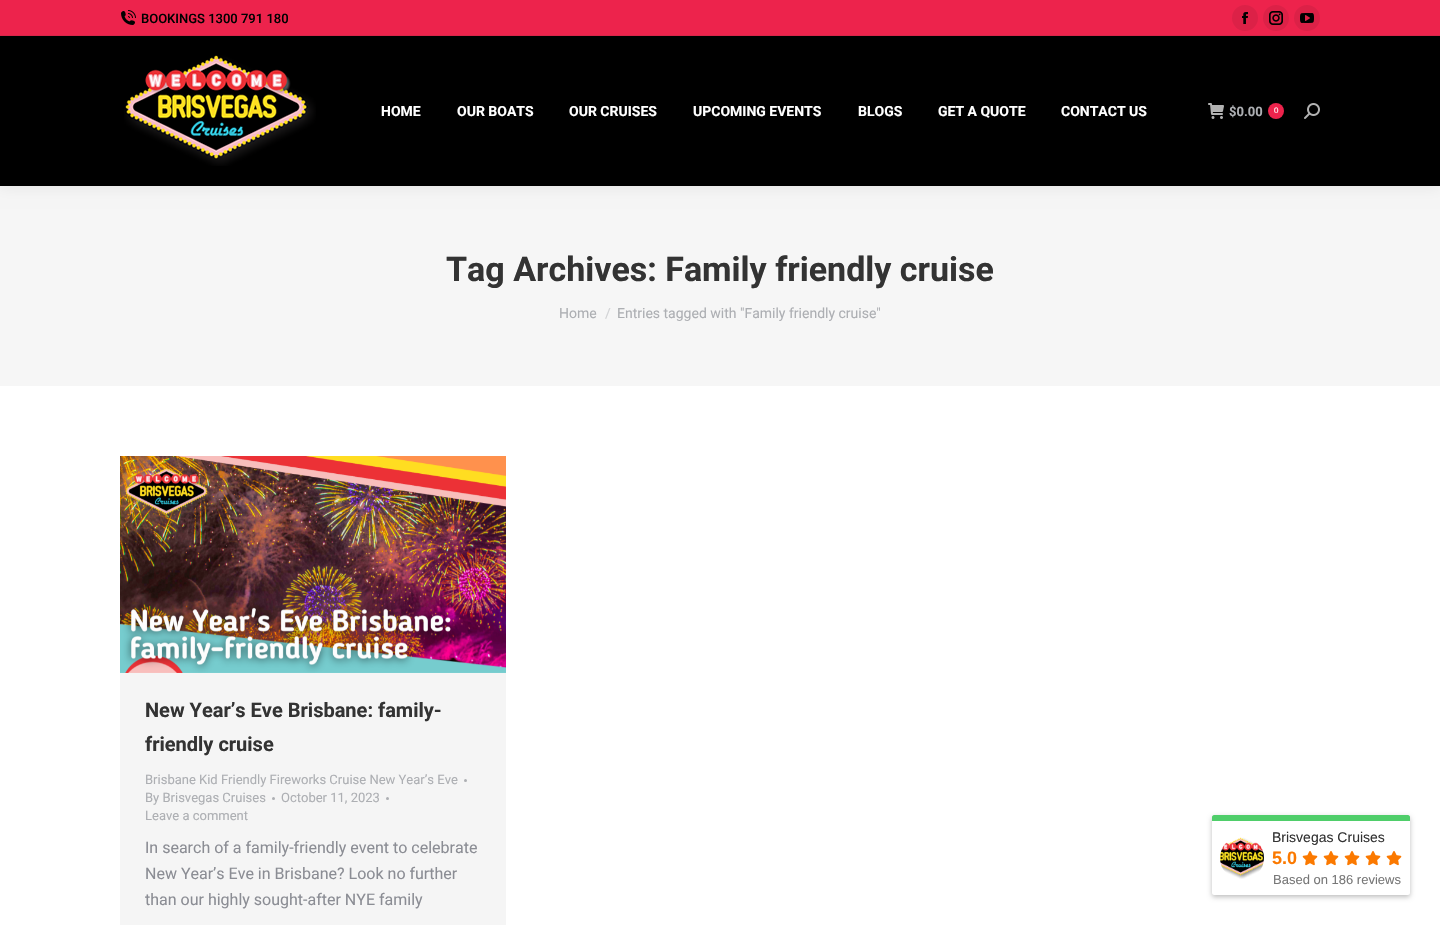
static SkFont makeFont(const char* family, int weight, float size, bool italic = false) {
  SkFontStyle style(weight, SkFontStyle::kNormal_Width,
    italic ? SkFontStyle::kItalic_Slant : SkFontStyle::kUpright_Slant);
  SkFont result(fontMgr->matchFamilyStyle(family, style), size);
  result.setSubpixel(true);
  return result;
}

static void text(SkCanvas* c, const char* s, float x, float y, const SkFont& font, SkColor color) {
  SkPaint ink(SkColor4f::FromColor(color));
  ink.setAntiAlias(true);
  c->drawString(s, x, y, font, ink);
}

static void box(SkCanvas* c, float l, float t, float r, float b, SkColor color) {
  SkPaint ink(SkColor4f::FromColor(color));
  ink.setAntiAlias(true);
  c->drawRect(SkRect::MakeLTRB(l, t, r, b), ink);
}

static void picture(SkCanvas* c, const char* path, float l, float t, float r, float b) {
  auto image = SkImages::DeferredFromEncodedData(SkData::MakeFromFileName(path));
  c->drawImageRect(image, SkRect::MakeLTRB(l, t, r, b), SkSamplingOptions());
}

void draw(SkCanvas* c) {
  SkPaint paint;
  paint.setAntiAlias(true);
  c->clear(0xffffffff);
  box(c, 0, 186, 1440, 386, 0xfff6f6f6);
  paint.setColor(0x12000000);
  paint.setMaskFilter(SkMaskFilter::MakeBlur(kNormal_SkBlurStyle, 7.5f));
  c->drawRect(SkRect::MakeLTRB(-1, -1, 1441, 187), paint);
  paint.setMaskFilter(nullptr);
  box(c, 0, 36, 1440, 186, 0xff000000);
  box(c, 0, 0, 1440, 35, 0xffed234c);
  picture(c, "img_01.png", 121, 10, 136, 25);
  SkFont face1 = makeFont("Roboto", 500, 13);
  text(c, "BOOKINGS 1300 791 180", 141, 23, face1, 0xff000000);
  paint.setColor(0xffdc2147);
  c->drawCircle(1245, 18, 13, paint);
  picture(c, "img_02.png", 1242, 12, 1248, 24);
  c->drawCircle(1276, 18, 13, paint);
  picture(c, "img_03.png", 1269, 11, 1283, 25);
  c->drawCircle(1307, 18, 13, paint);
  picture(c, "img_04.png", 1300, 13, 1314, 23);
  box(c, 0, 35, 1440, 36, 0xffd92549);
  picture(c, "img_05.png", 124, 55, 316, 166);
  SkFont face2 = makeFont("Roboto", 700, 14);
  text(c, "HOME", 381, 116, face2, 0xffffffff);
  text(c, "OUR BOATS", 457, 116, face2, 0xffffffff);
  text(c, "OUR CRUISES", 569, 116, face2, 0xffffffff);
  text(c, "UPCOMING EVENTS", 693, 116, face2, 0xffffffff);
  text(c, "BLOGS", 858, 116, face2, 0xffffffff);
  text(c, "GET A QUOTE", 938, 116, face2, 0xffffffff);
  text(c, "CONTACT US", 1061, 116, face2, 0xffffffff);
  picture(c, "img_06.png", 1208, 103, 1224, 119);
  SkFont face3 = makeFont("Roboto", 700, 13);
  text(c, "$0.00", 1229, 116, face3, 0xffadafb3);
  paint.setColor(0xffed234c);
  c->drawCircle(1276, 111, 8, paint);
  SkFont face4 = makeFont("Liberation Sans", 400, 8);
  text(c, "0", 1274, 113, face4, 0xffffffff);
  picture(c, "img_07.png", 1304, 103, 1320, 119);
  SkFont face5 = makeFont("Roboto", 700, 34);
  text(c, "Tag Archives: Family friendly cruise", 446, 281, face5, 0xff333333);
  SkFont face6 = makeFont("Roboto", 400, 14);
  text(c, "Home", 559, 318, face6, 0xffadafb3);
  text(c, "/", 605, 318, face6, 0xffd2d3d5);
  text(c, "Entries tagged with \"Family friendly cruise\"", 617, 318, face6, 0xffadafb3);
  box(c, 120, 672, 506, 925, 0xfff5f5f5);
  picture(c, "img_08.png", 120, 456, 506, 673);
  SkFont face7 = makeFont("Roboto", 700, 20);
  text(c, "New Year’s Eve Brisbane: family-", 145, 717, face7, 0xff333333);
  text(c, "friendly cruise", 145, 751, face7, 0xff333333);
  SkFont face8 = makeFont("Roboto", 400, 13);
  text(c, "Brisbane Kid Friendly Fireworks Cruise New Year’s Eve", 145, 784, face8, 0xffadafb3);
  paint.setColor(0xffadafb3);
  c->drawCircle(465.5f, 780.5f, 1.5f, paint);
  text(c, "By Brisvegas Cruises", 145, 802, face8, 0xffadafb3);
  c->drawCircle(273.5f, 798.5f, 1.5f, paint);
  text(c, "October 11, 2023", 281, 802, face8, 0xffadafb3);
  c->drawCircle(387.5f, 798.5f, 1.5f, paint);
  text(c, "Leave a comment", 145, 820, face8, 0xffadafb3);
  SkFont face9 = makeFont("Roboto", 400, 16);
  text(c, "In search of a family-friendly event to celebrate", 145, 853, face9, 0xff8b8d94);
  text(c, "New Year’s Eve in Brisbane? Look no further", 145, 879, face9, 0xff8b8d94);
  text(c, "than our highly sought-after NYE family", 145, 905, face9, 0xff8b8d94);
  paint.setColor(0x42000000);
  paint.setMaskFilter(SkMaskFilter::MakeBlur(kNormal_SkBlurStyle, 2.5f));
  c->drawRoundRect(SkRect::MakeLTRB(1212, 817, 1410, 897), 2, 2, paint);
  paint.setMaskFilter(nullptr);
  paint.setColor(0xff4fce6a);
  c->drawPath(SkPathBuilder().moveTo(1214, 815).lineTo(1408, 815).cubicTo(1409, 815, 1410, 816, 1410, 817).lineTo(1410, 821).lineTo(1212, 821).lineTo(1212, 817).cubicTo(1212, 816, 1213, 815, 1214, 815).close().detach(), paint);
  paint.setColor(0xffffffff);
  c->drawPath(SkPathBuilder().moveTo(1212, 821).lineTo(1410, 821).lineTo(1410, 893).cubicTo(1410, 894, 1409, 895, 1408, 895).lineTo(1214, 895).cubicTo(1213, 895, 1212, 894, 1212, 893).close().detach(), paint);
  picture(c, "img_09.png", 1220, 837, 1264, 879);
  SkFont face10 = makeFont("Liberation Sans", 400, 14);
  text(c, "Brisvegas Cruises", 1272, 842, face10, 0xff333333);
  SkFont face11 = makeFont("Liberation Sans", 700, 18);
  text(c, "5.0", 1272, 864, face11, 0xfffb7900);
  picture(c, "img_10.png", 1302, 851, 1318, 866);
  picture(c, "img_10.png", 1323, 851, 1339, 866);
  picture(c, "img_10.png", 1344, 851, 1360, 866);
  picture(c, "img_10.png", 1365, 851, 1381, 866);
  picture(c, "img_10.png", 1386, 851, 1402, 866);
  SkFont face12 = makeFont("Liberation Sans", 400, 13);
  text(c, "Based on 186 reviews", 1273, 884, face12, 0xff777777);
}
